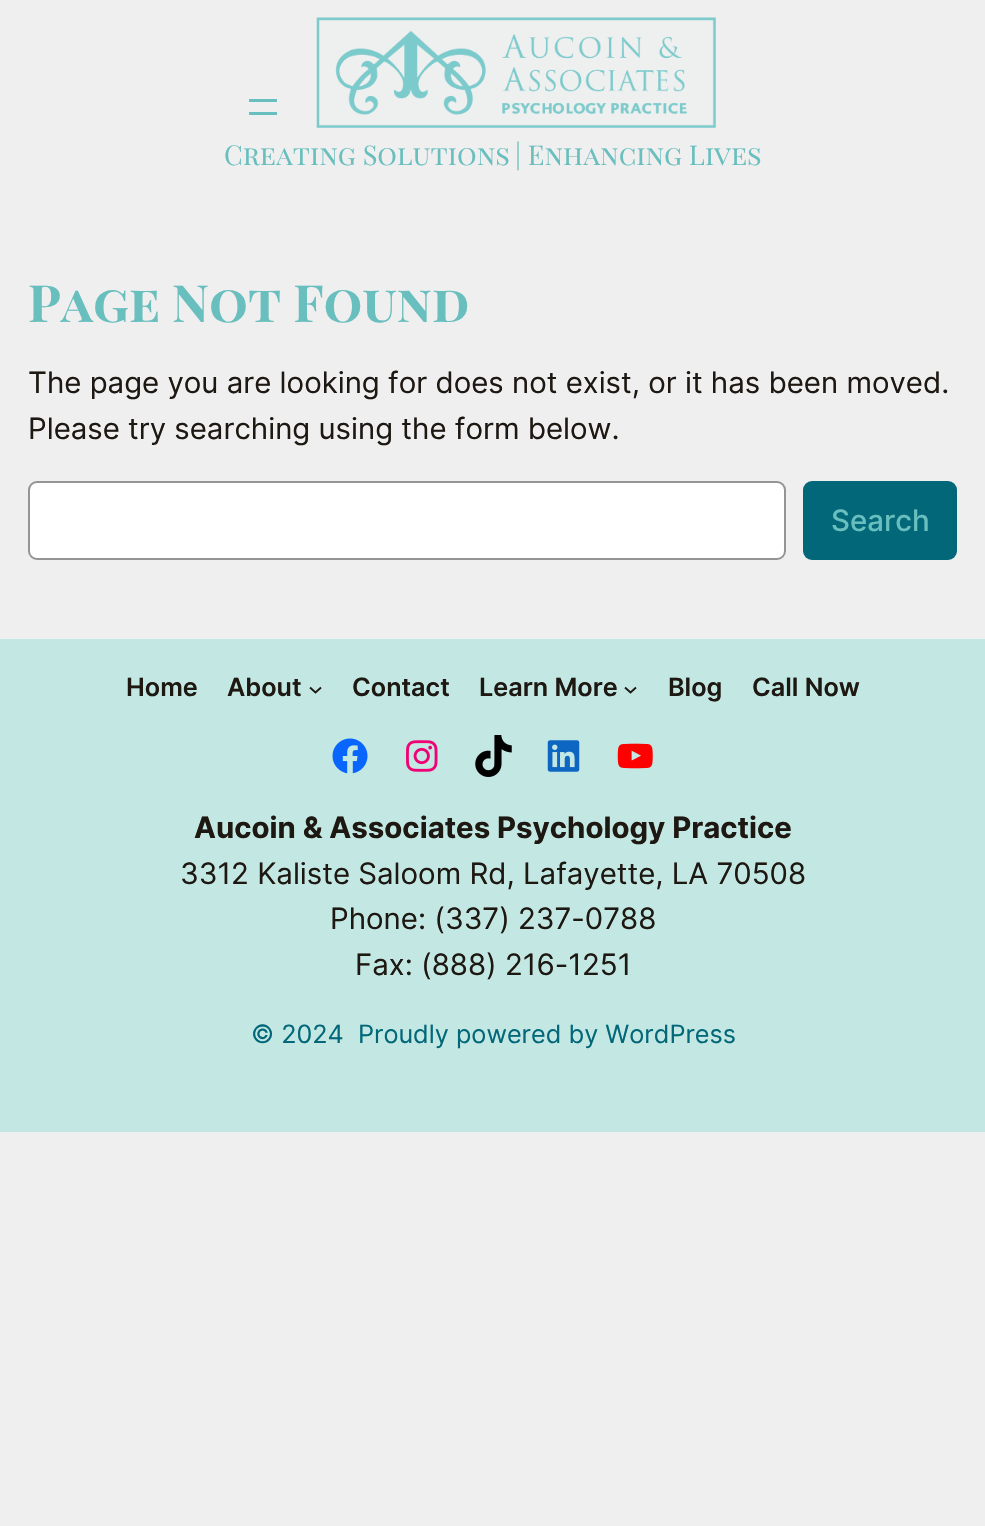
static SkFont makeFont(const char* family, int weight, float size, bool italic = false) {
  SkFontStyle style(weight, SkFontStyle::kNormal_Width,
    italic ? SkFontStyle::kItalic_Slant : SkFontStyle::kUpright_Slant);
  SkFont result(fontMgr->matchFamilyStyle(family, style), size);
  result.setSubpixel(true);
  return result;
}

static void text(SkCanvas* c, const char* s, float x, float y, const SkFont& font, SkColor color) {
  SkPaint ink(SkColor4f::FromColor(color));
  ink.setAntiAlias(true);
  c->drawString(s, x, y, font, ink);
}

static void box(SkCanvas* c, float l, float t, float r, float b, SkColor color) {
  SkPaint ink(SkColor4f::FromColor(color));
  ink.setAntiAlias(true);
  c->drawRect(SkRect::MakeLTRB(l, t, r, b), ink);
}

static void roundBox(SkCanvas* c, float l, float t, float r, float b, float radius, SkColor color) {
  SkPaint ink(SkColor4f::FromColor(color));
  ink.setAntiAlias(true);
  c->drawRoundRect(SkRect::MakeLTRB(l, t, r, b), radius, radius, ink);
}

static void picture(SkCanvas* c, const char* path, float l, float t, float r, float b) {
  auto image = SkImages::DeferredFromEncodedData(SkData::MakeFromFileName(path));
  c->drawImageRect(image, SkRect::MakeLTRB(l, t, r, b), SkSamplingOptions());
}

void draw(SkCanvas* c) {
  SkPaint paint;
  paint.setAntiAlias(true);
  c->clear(0xffefefef);
  box(c, 249, 99, 277, 102, 0xff69bebe);
  box(c, 249, 112, 277, 115, 0xff69bebe);
  picture(c, "img_01.png", 316, 17, 716, 128);
  SkFont face1 = makeFont("Playfair Display SC", 400, 27.25f);
  text(c, "Creating Solutions", 224, 165, face1, 0xff69bebe);
  text(c, "| Enhancing Lives", 515, 165, face1, 0xff69bebe);
  SkFont face2 = makeFont("Playfair Display SC", 700, 51.25f);
  text(c, "Page Not Found", 28, 322, face2, 0xff69bebe);
  SkFont face3 = makeFont("Inter", 400, 29.4f);
  text(c, "The page you are looking for does not exist, or it has been moved.", 28, 393, face3, 0xff1e1812);
  text(c, "Please try searching using the form below.", 28, 439, face3, 0xff1e1812);
  paint.setColor(0xffffffff);
  c->drawRoundRect(SkRect::MakeLTRB(29, 482, 785, 559), 8, 8, paint);
  paint.setStyle(SkPaint::kStroke_Style);
  paint.setStrokeWidth(2);
  paint.setColor(0xff949494);
  c->drawRoundRect(SkRect::MakeLTRB(29, 482, 785, 559), 8, 8, paint);
  roundBox(c, 803, 481, 957, 560, 9, 0xff016779);
  SkFont face4 = makeFont("Inter", 500, 29.4f);
  text(c, "Search", 831, 531, face4, 0xff69bebe);
  box(c, 0, 639, 985, 1132, 0xffc3e7e3);
  SkFont face5 = makeFont("Inter", 600, 25.25f);
  text(c, "Home", 126, 696, face5, 0xff1e1812);
  text(c, "About", 227, 696, face5, 0xff1e1812);
  paint.setStrokeWidth(1.9f);
  paint.setColor(0xff1e1812);
  c->drawPath(SkPathBuilder().moveTo(310, 687.5f).lineTo(315.5f, 692.5f).lineTo(321, 687.5f).detach(), paint);
  text(c, "Contact", 352, 696, face5, 0xff1e1812);
  text(c, "Learn More", 479, 696, face5, 0xff1e1812);
  c->drawPath(SkPathBuilder().moveTo(625, 687.5f).lineTo(630.5f, 692.5f).lineTo(636, 687.5f).detach(), paint);
  text(c, "Blog", 668, 696, face5, 0xff1e1812);
  text(c, "Call Now", 752, 696, face5, 0xff1e1812);
  picture(c, "img_02.png", 332, 738, 368, 774);
  picture(c, "img_03.png", 406, 740, 438, 772);
  picture(c, "img_04.png", 475, 735, 512, 777);
  picture(c, "img_05.png", 547, 740, 580, 772);
  picture(c, "img_06.png", 617, 743, 653, 769);
  SkFont face6 = makeFont("Inter", 700, 29.4f);
  text(c, "Aucoin & Associates Psychology Practice", 194, 838, face6, 0xff1e1812);
  text(c, "3312 Kaliste Saloom Rd, Lafayette, LA 70508", 180, 884, face3, 0xff1e1812);
  text(c, "Phone: (337) 237-0788", 330, 929, face3, 0xff1e1812);
  text(c, "Fax: (888) 216-1251", 355, 975, face3, 0xff1e1812);
  SkFont face7 = makeFont("Inter", 400, 25.25f);
  text(c, "© 2024  Proudly powered by WordPress", 251, 1043, face7, 0xff016779);
}
